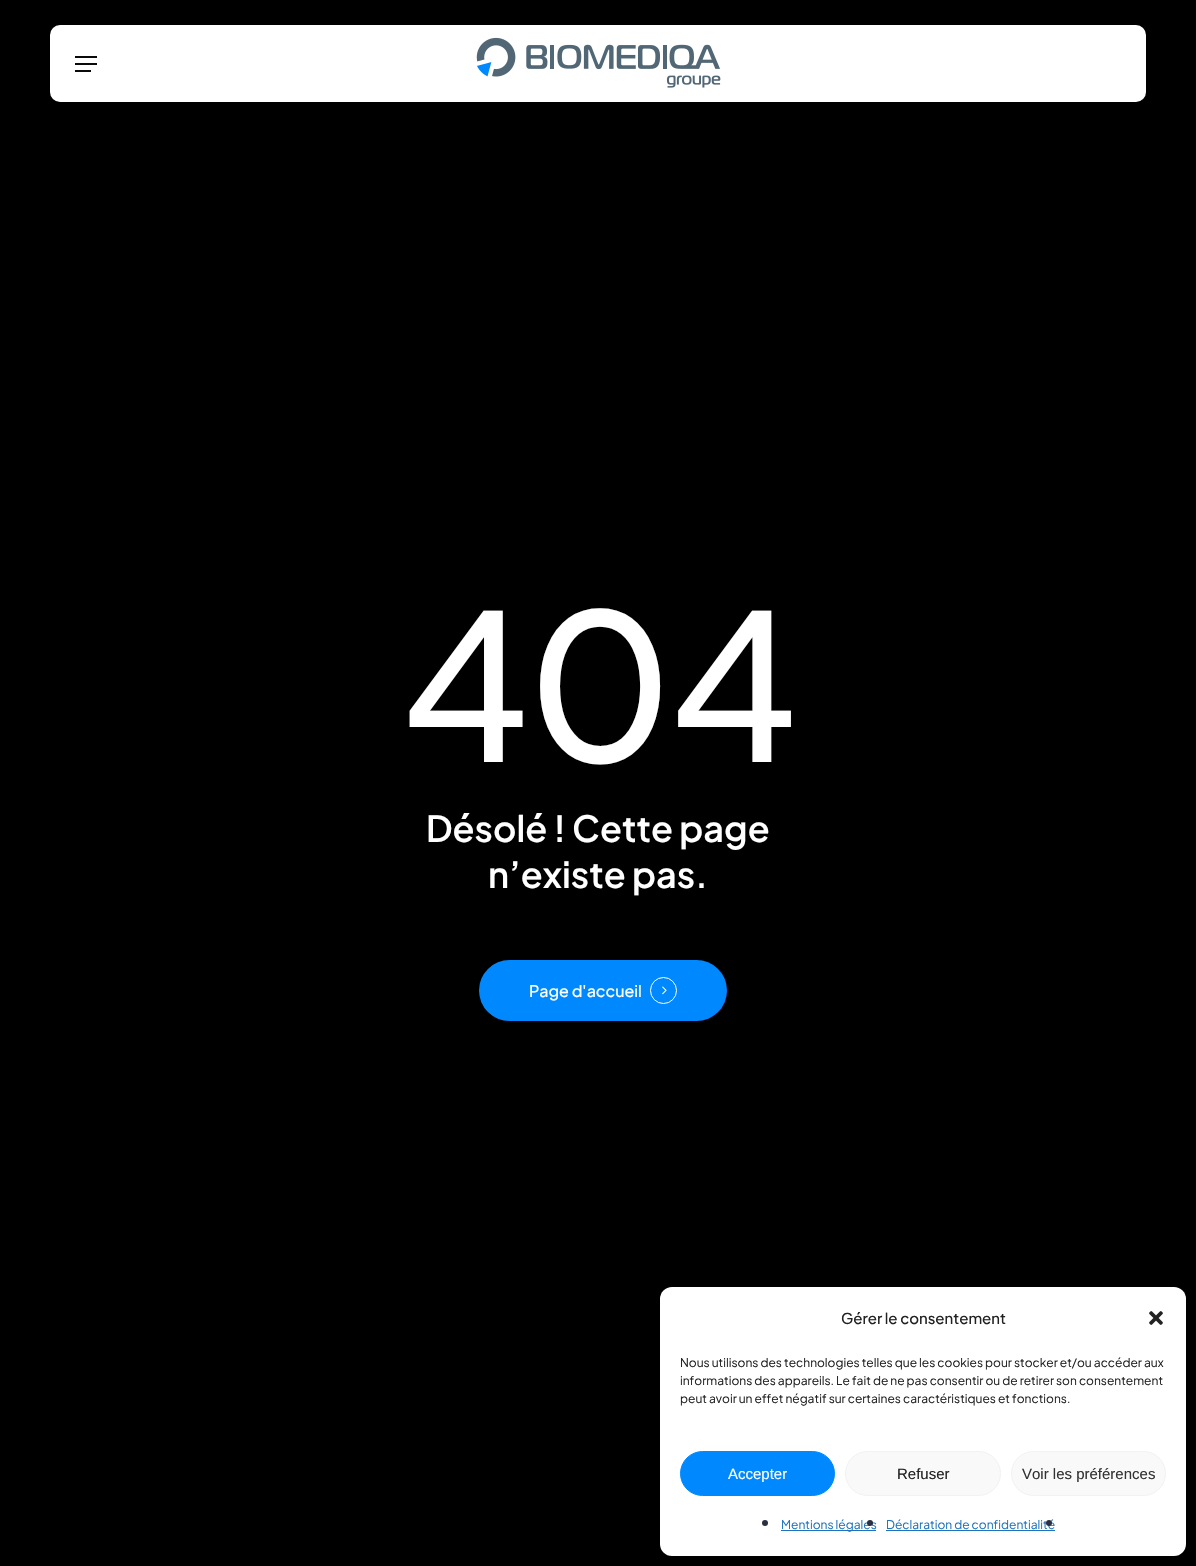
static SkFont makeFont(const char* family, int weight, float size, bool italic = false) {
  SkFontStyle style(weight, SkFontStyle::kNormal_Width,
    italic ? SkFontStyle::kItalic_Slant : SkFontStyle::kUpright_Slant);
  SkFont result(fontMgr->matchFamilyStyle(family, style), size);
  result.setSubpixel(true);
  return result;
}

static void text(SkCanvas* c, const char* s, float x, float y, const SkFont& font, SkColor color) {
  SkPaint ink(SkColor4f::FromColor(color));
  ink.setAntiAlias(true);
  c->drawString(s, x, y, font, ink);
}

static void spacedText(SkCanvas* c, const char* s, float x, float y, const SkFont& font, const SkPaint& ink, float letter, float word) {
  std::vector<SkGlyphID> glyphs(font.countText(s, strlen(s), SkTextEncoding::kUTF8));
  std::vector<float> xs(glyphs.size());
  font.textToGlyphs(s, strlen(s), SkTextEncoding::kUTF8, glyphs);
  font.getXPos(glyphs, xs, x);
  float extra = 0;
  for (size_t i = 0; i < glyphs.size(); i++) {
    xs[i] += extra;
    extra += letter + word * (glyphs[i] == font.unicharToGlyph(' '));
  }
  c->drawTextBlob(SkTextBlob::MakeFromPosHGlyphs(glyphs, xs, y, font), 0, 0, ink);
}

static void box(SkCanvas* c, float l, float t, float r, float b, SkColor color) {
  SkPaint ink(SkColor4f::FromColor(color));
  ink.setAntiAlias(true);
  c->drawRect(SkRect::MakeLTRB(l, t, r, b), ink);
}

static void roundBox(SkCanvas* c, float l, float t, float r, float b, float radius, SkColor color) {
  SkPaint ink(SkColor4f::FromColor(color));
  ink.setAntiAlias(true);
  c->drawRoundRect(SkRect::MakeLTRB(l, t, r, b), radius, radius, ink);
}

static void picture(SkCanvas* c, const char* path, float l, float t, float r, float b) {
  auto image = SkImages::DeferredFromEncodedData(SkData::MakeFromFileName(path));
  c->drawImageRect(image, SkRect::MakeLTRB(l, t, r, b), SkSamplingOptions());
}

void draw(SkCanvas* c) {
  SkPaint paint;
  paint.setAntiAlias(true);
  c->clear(0xff000000);
  roundBox(c, 50, 25, 1146, 102, 10, 0xffffffff);
  box(c, 75, 56, 97, 58, 0xff0a0a0a);
  box(c, 75, 70, 91, 72, 0xff0a0a0a);
  box(c, 75, 63, 97, 65, 0xff0a0a0a);
  picture(c, "img_01.png", 476, 37, 721, 88);
  SkFont face1 = makeFont("Plus Jakarta Sans", 500, 203);
  paint.setColor(0xffffffff);
  spacedText(c, "404", 401, 762, face1, paint, -4, 0);
  SkFont face2 = makeFont("Plus Jakarta Sans", 600, 35.9f);
  text(c, "Désolé ! Cette page", 426, 842, face2, 0xffffffff);
  text(c, "n’existe pas.", 488, 888, face2, 0xffffffff);
  roundBox(c, 479, 960, 727, 1021, 30.5f, 0xff0088ff);
  SkFont face3 = makeFont("Plus Jakarta Sans", 500, 16);
  text(c, "Page d'accueil", 529, 997, face3, 0xffffffff);
  picture(c, "img_02.png", 662, 986, 667, 995);
  paint.setStyle(SkPaint::kStroke_Style);
  paint.setStrokeWidth(1);
  c->drawCircle(663.5f, 990.5f, 13, paint);
  roundBox(c, 660, 1287, 1186, 1556, 12, 0xffffffff);
  SkFont face4 = makeFont("Plus Jakarta Sans", 500, 15);
  text(c, "Gérer le consentement", 841, 1324, face4, 0xff222222);
  picture(c, "img_03.png", 1149, 1311, 1163, 1325);
  SkFont face5 = makeFont("Plus Jakarta Sans", 400, 12);
  text(c, "Nous utilisons des technologies telles que les cookies pour stocker et/ou accéder aux", 680, 1367, face5, 0xff222222);
  text(c, "informations des appareils. Le fait de ne pas consentir ou de retirer son consentement", 680, 1385, face5, 0xff222222);
  text(c, "peut avoir un effet négatif sur certaines caractéristiques et fonctions.", 680, 1403, face5, 0xff222222);
  paint.setStyle(SkPaint::kFill_Style);
  paint.setColor(0xff0088ff);
  c->drawRoundRect(SkRect::MakeLTRB(680.5f, 1451.5f, 834.5f, 1495.5f), 22, 22, paint);
  paint.setStyle(SkPaint::kStroke_Style);
  c->drawRoundRect(SkRect::MakeLTRB(680.5f, 1451.5f, 834.5f, 1495.5f), 22, 22, paint);
  SkFont face6 = makeFont("Liberation Sans", 400, 15);
  text(c, "Accepter", 728, 1479, face6, 0xffffffff);
  paint.setStyle(SkPaint::kFill_Style);
  paint.setColor(0xfff9f9f9);
  c->drawRoundRect(SkRect::MakeLTRB(845.5f, 1451.5f, 1000.5f, 1495.5f), 22, 22, paint);
  paint.setStyle(SkPaint::kStroke_Style);
  paint.setColor(0xfff2f2f2);
  c->drawRoundRect(SkRect::MakeLTRB(845.5f, 1451.5f, 1000.5f, 1495.5f), 22, 22, paint);
  text(c, "Refuser", 897, 1479, face6, 0xff222222);
  paint.setStyle(SkPaint::kFill_Style);
  paint.setColor(0xfff9f9f9);
  c->drawRoundRect(SkRect::MakeLTRB(1011.5f, 1451.5f, 1165.5f, 1495.5f), 22, 22, paint);
  paint.setStyle(SkPaint::kStroke_Style);
  paint.setColor(0xfff2f2f2);
  c->drawRoundRect(SkRect::MakeLTRB(1011.5f, 1451.5f, 1165.5f, 1495.5f), 22, 22, paint);
  text(c, "Voir les préférences", 1022, 1479, face6, 0xff333333);
  paint.setStyle(SkPaint::kFill_Style);
  paint.setColor(0xff2a2f41);
  c->drawCircle(765, 1523, 3, paint);
  box(c, 781, 1530, 876, 1531, 0xff1e73be);
  text(c, "Mentions légales", 781, 1529, face5, 0xff1e73be);
  c->drawCircle(870, 1523, 3, paint);
  text(c, "Déclaration de confidentialité", 886, 1529, face5, 0xff1e73be);
  box(c, 886, 1530, 1055, 1531, 0xff1e73be);
  c->drawCircle(1049, 1523, 3, paint);
}
